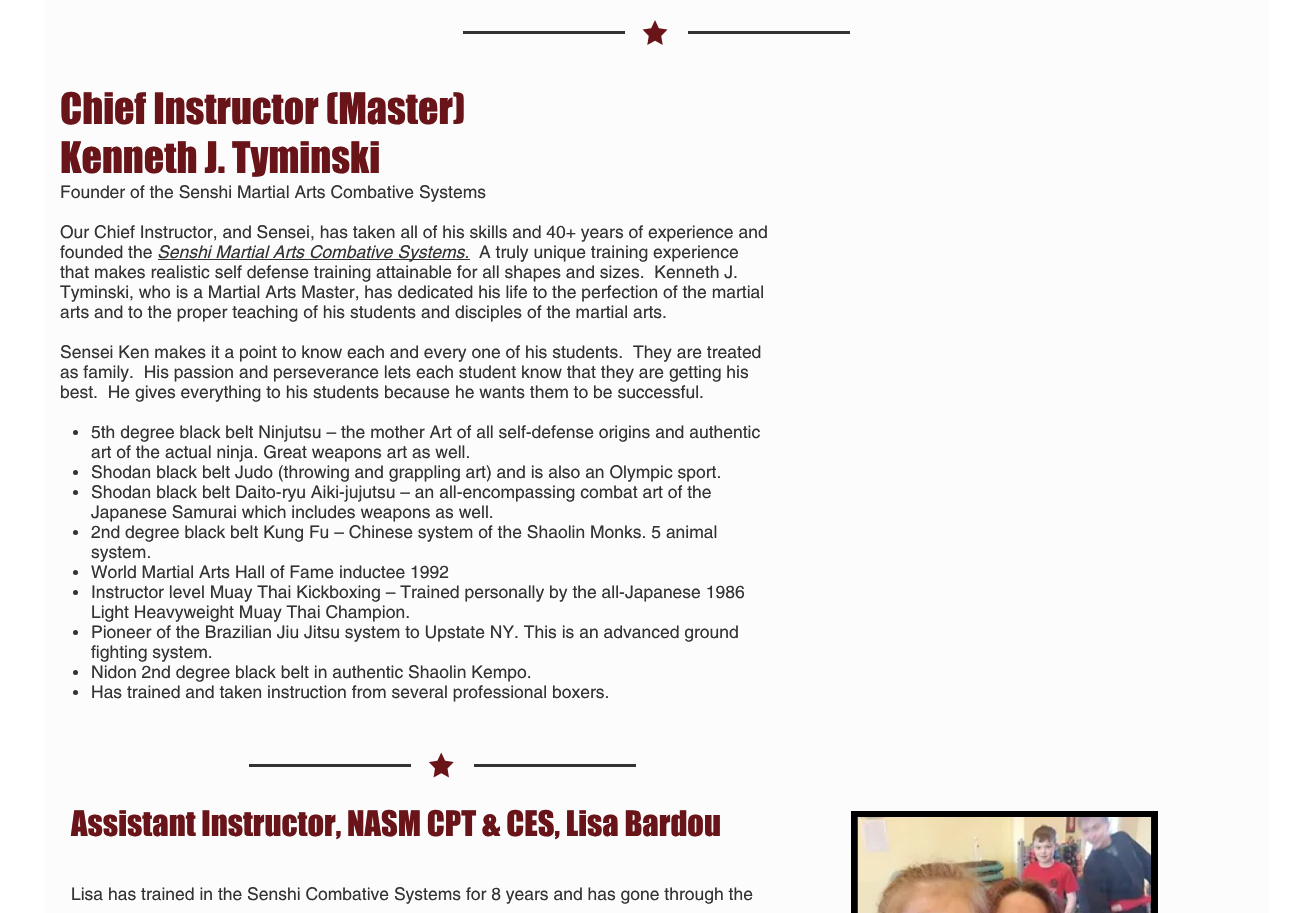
static SkFont makeFont(const char* family, int weight, float size, bool italic = false) {
  SkFontStyle style(weight, SkFontStyle::kNormal_Width,
    italic ? SkFontStyle::kItalic_Slant : SkFontStyle::kUpright_Slant);
  SkFont result(fontMgr->matchFamilyStyle(family, style), size);
  result.setSubpixel(true);
  return result;
}

static void text(SkCanvas* c, const char* s, float x, float y, const SkFont& font, SkColor color) {
  SkPaint ink(SkColor4f::FromColor(color));
  ink.setAntiAlias(true);
  c->drawString(s, x, y, font, ink);
}

static void box(SkCanvas* c, float l, float t, float r, float b, SkColor color) {
  SkPaint ink(SkColor4f::FromColor(color));
  ink.setAntiAlias(true);
  c->drawRect(SkRect::MakeLTRB(l, t, r, b), ink);
}

static void picture(SkCanvas* c, const char* path, float l, float t, float r, float b) {
  auto image = SkImages::DeferredFromEncodedData(SkData::MakeFromFileName(path));
  c->drawImageRect(image, SkRect::MakeLTRB(l, t, r, b), SkSamplingOptions());
}

void draw(SkCanvas* c) {
  SkPaint paint;
  paint.setAntiAlias(true);
  c->clear(0xffffffff);
  box(c, 44, 0, 1269, 913, 0xfffcfcfc);
  box(c, 463, 31, 625, 34, 0xff333333);
  picture(c, "img_01.png", 642, 20, 668, 45);
  box(c, 688, 31, 850, 34, 0xff333333);
  SkFont face1 = makeFont("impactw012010", 400, 40);
  text(c, "Chief Instructor (Master)", 60, 124, face1, 0xff691419);
  text(c, "Kenneth J. Tyminski", 60, 173, face1, 0xff691419);
  SkFont face2 = makeFont("helvetica", 400, 17.5f);
  text(c, "Founder of the Senshi Martial Arts Combative Systems", 60, 198, face2, 0xff333333);
  text(c, "Our Chief Instructor, and Sensei, has taken all of his skills and 40+ years of experience and", 60, 238, face2, 0xff333333);
  text(c, "founded the", 60, 258, face2, 0xff333333);
  box(c, 158, 259, 470, 260, 0xff333333);
  SkFont face3 = makeFont("helvetica", 400, 17.5f, true);
  text(c, "Senshi Martial Arts Combative Systems.", 157, 258, face3, 0xff333333);
  text(c, "A truly unique training experience", 479, 258, face2, 0xff333333);
  text(c, "that makes realistic self defense training attainable for all shapes and sizes.  Kenneth J.", 60, 278, face2, 0xff333333);
  text(c, "Tyminski, who is a Martial Arts Master, has dedicated his life to the perfection of the martial", 60, 298, face2, 0xff333333);
  text(c, "arts and to the proper teaching of his students and disciples of the martial arts.", 60, 318, face2, 0xff333333);
  text(c, "Sensei Ken makes it a point to know each and every one of his students.  They are treated", 60, 358, face2, 0xff333333);
  text(c, "as family.  His passion and perseverance lets each student know that they are getting his", 60, 378, face2, 0xff333333);
  text(c, "best.  He gives everything to his students because he wants them to be successful.", 60, 398, face2, 0xff333333);
  paint.setColor(0xff333333);
  c->drawCircle(75.5f, 432.5f, 2.5f, paint);
  text(c, "5th degree black belt Ninjutsu – the mother Art of all self-defense origins and authentic", 91, 438, face2, 0xff333333);
  text(c, "art of the actual ninja. Great weapons art as well.", 91, 458, face2, 0xff333333);
  c->drawCircle(75.5f, 472.5f, 2.5f, paint);
  text(c, "Shodan black belt Judo (throwing and grappling art) and is also an Olympic sport.", 91, 478, face2, 0xff333333);
  c->drawCircle(75.5f, 492.5f, 2.5f, paint);
  text(c, "Shodan black belt Daito-ryu Aiki-jujutsu – an all-encompassing combat art of the", 91, 498, face2, 0xff333333);
  text(c, "Japanese Samurai which includes weapons as well.", 91, 518, face2, 0xff333333);
  c->drawCircle(75.5f, 532.5f, 2.5f, paint);
  text(c, "2nd degree black belt Kung Fu – Chinese system of the Shaolin Monks. 5 animal", 91, 538, face2, 0xff333333);
  text(c, "system.", 91, 558, face2, 0xff333333);
  c->drawCircle(75.5f, 572.5f, 2.5f, paint);
  text(c, "World Martial Arts Hall of Fame inductee 1992", 91, 578, face2, 0xff333333);
  c->drawCircle(75.5f, 592.5f, 2.5f, paint);
  text(c, "Instructor level Muay Thai Kickboxing – Trained personally by the all-Japanese 1986", 91, 598, face2, 0xff333333);
  text(c, "Light Heavyweight Muay Thai Champion.", 91, 618, face2, 0xff333333);
  c->drawCircle(75.5f, 632.5f, 2.5f, paint);
  text(c, "Pioneer of the Brazilian Jiu Jitsu system to Upstate NY. This is an advanced ground", 91, 638, face2, 0xff333333);
  text(c, "fighting system.", 91, 658, face2, 0xff333333);
  c->drawCircle(75.5f, 672.5f, 2.5f, paint);
  text(c, "Nidon 2nd degree black belt in authentic Shaolin Kempo.", 91, 678, face2, 0xff333333);
  c->drawCircle(75.5f, 692.5f, 2.5f, paint);
  text(c, "Has trained and taken instruction from several professional boxers.", 91, 698, face2, 0xff333333);
  box(c, 249, 764, 411, 767, 0xff333333);
  picture(c, "img_02.png", 428, 752, 454, 778);
  box(c, 474, 764, 636, 767, 0xff333333);
  SkFont face4 = makeFont("impactw012010", 400, 32.5f);
  text(c, "Assistant Instructor, NASM CPT & CES, Lisa Bardou", 71, 836, face4, 0xff691419);
  text(c, "Lisa has trained in the Senshi Combative Systems for 8 years and has gone through the", 71, 900, face2, 0xff333333);
  box(c, 851, 811, 1158, 913, 0xff000000);
  picture(c, "img_03.png", 857, 817, 1152, 913);
}
